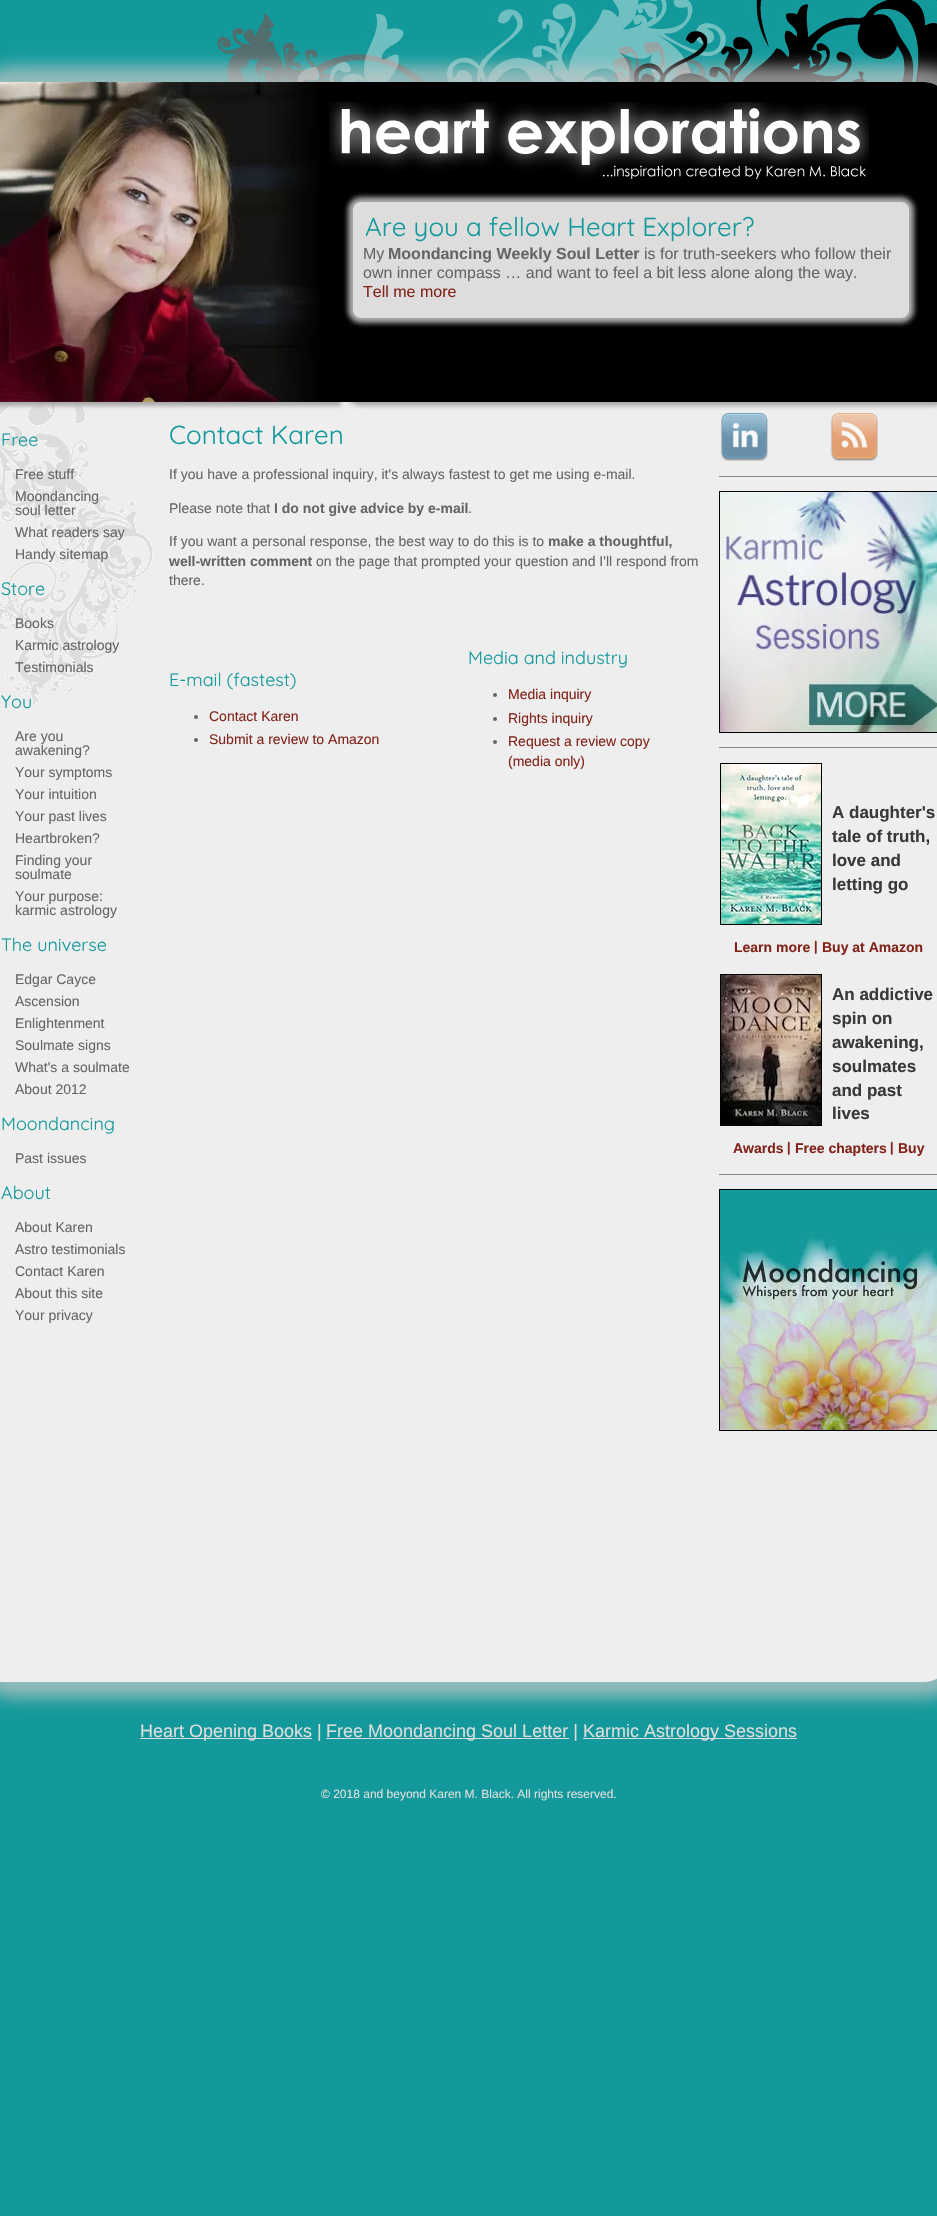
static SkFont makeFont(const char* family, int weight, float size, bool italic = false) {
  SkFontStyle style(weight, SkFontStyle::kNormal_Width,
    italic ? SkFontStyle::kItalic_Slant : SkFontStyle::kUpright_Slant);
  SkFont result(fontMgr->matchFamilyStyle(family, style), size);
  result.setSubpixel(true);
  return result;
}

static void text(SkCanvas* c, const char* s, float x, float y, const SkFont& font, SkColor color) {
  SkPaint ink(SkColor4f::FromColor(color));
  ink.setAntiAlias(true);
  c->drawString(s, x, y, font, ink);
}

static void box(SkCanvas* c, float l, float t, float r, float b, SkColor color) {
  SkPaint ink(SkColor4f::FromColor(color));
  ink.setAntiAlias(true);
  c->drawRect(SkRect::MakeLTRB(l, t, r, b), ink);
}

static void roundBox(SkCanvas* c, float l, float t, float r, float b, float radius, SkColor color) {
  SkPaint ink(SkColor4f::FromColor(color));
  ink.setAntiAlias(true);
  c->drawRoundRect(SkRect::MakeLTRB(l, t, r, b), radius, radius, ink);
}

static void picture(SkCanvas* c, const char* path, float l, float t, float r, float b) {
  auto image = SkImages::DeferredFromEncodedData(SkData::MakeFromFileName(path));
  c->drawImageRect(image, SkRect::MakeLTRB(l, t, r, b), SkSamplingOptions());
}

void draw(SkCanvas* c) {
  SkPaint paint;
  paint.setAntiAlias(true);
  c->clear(0xff13999b);
  picture(c, "img_01.png", 0, 0, 937, 86);
  paint.setColor(0xb3c8c8c8);
  paint.setMaskFilter(SkMaskFilter::MakeBlur(kNormal_SkBlurStyle, 8));
  c->drawRoundRect(SkRect::MakeLTRB(-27, 66, 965, 1698), 41, 41, paint);
  paint.setMaskFilter(nullptr);
  paint.setColor(0xffeeeeee);
  c->drawPath(SkPathBuilder().moveTo(-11, 82).lineTo(924, 82).cubicTo(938, 82, 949, 93, 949, 107).lineTo(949, 1657).cubicTo(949, 1671, 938, 1682, 924, 1682).lineTo(-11, 1682).close().detach(), paint);
  picture(c, "img_04.png", 0, 402, 153, 706);
  paint.setColor(0xffaaaaaa);
  paint.setMaskFilter(SkMaskFilter::MakeBlur(kNormal_SkBlurStyle, 2));
  c->drawRect(SkRect::MakeLTRB(-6, 94, 341, 406), paint);
  paint.setMaskFilter(nullptr);
  box(c, 321, 82, 329, 402, 0xff000000);
  picture(c, "img_02.png", 0, 82, 321, 402);
  paint.setMaskFilter(SkMaskFilter::MakeBlur(kNormal_SkBlurStyle, 2));
  c->drawRoundRect(SkRect::MakeLTRB(341, 94, 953, 406), 21, 21, paint);
  paint.setMaskFilter(nullptr);
  paint.setColor(0xff000000);
  c->drawPath(SkPathBuilder().moveTo(329, 82).lineTo(924, 82).cubicTo(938, 82, 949, 93, 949, 107).lineTo(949, 402).lineTo(329, 402).close().detach(), paint);
  picture(c, "img_03.png", 329, 102, 869, 179);
  paint.setColor(0xffaaaaaa);
  paint.setMaskFilter(SkMaskFilter::MakeBlur(kNormal_SkBlurStyle, 2.5f));
  c->drawRoundRect(SkRect::MakeLTRB(348, 197, 914, 323), 13, 13, paint);
  paint.setMaskFilter(nullptr);
  roundBox(c, 353, 202, 909, 318, 8, 0xffdddddd);
  SkFont face1 = makeFont("Quicksand", 400, 26);
  text(c, "Are you a fellow Heart Explorer?", 365, 236, face1, 0xff13999b);
  SkFont face2 = makeFont("Liberation Sans", 400, 16);
  text(c, "My", 363, 259, face2, 0xff666666);
  SkFont face3 = makeFont("Liberation Sans", 700, 16);
  text(c, "Moondancing Weekly Soul Letter", 388, 259, face3, 0xff666666);
  text(c, "is for truth-seekers who follow their", 644, 259, face2, 0xff666666);
  text(c, "own inner compass … and want to feel a bit less alone along the way.", 363, 278, face2, 0xff666666);
  text(c, "Tell me more", 363, 297, face2, 0xff82241a);
  SkFont face4 = makeFont("Quicksand", 400, 18);
  text(c, "Free", 1, 446, face4, 0xff13999b);
  SkFont face5 = makeFont("Liberation Sans", 400, 14);
  text(c, "Free stuff", 15, 479, face5, 0xff666666);
  text(c, "Moondancing", 15, 501, face5, 0xff666666);
  text(c, "soul letter", 15, 515, face5, 0xff666666);
  text(c, "What readers say", 15, 537, face5, 0xff666666);
  text(c, "Handy sitemap", 15, 559, face5, 0xff666666);
  text(c, "Store", 1, 595, face4, 0xff13999b);
  text(c, "Books", 15, 628, face5, 0xff666666);
  text(c, "Karmic astrology", 15, 650, face5, 0xff666666);
  text(c, "Testimonials", 15, 672, face5, 0xff666666);
  text(c, "You", 1, 708, face4, 0xff13999b);
  text(c, "Are you", 15, 741, face5, 0xff666666);
  text(c, "awakening?", 15, 755, face5, 0xff666666);
  text(c, "Your symptoms", 15, 777, face5, 0xff666666);
  text(c, "Your intuition", 15, 799, face5, 0xff666666);
  text(c, "Your past lives", 15, 821, face5, 0xff666666);
  text(c, "Heartbroken?", 15, 843, face5, 0xff666666);
  text(c, "Finding your", 15, 865, face5, 0xff666666);
  text(c, "soulmate", 15, 879, face5, 0xff666666);
  text(c, "Your purpose:", 15, 901, face5, 0xff666666);
  text(c, "karmic astrology", 15, 915, face5, 0xff666666);
  text(c, "The universe", 1, 951, face4, 0xff13999b);
  text(c, "Edgar Cayce", 15, 984, face5, 0xff666666);
  text(c, "Ascension", 15, 1006, face5, 0xff666666);
  text(c, "Enlightenment", 15, 1028, face5, 0xff666666);
  text(c, "Soulmate signs", 15, 1050, face5, 0xff666666);
  text(c, "What's a soulmate", 15, 1072, face5, 0xff666666);
  text(c, "About 2012", 15, 1094, face5, 0xff666666);
  text(c, "Moondancing", 1, 1130, face4, 0xff13999b);
  text(c, "Past issues", 15, 1163, face5, 0xff666666);
  text(c, "About", 1, 1199, face4, 0xff13999b);
  text(c, "About Karen", 15, 1232, face5, 0xff666666);
  text(c, "Astro testimonials", 15, 1254, face5, 0xff666666);
  text(c, "Contact Karen", 15, 1276, face5, 0xff666666);
  text(c, "About this site", 15, 1298, face5, 0xff666666);
  text(c, "Your privacy", 15, 1320, face5, 0xff666666);
  text(c, "Contact Karen", 169, 444, face1, 0xff13999b);
  text(c, "If you have a professional inquiry, it's always fastest to get me using e-mail.", 169, 479, face5, 0xff666666);
  text(c, "Please note that", 169, 513, face5, 0xff666666);
  SkFont face6 = makeFont("Liberation Sans", 700, 14);
  text(c, "I do not give advice by e-mail", 274, 513, face6, 0xff666666);
  text(c, ".", 468, 513, face5, 0xff666666);
  text(c, "If you want a personal response, the best way to do this is to", 169, 546, face5, 0xff666666);
  text(c, "make a thoughtful,", 548, 546, face6, 0xff666666);
  text(c, "well-written comment", 169, 566, face6, 0xff666666);
  text(c, "on the page that prompted your question and I'll respond from", 316, 566, face5, 0xff666666);
  text(c, "there.", 169, 585, face5, 0xff666666);
  text(c, "E-mail (fastest)", 169, 686, face4, 0xff13999b);
  paint.setColor(0xff666666);
  c->drawCircle(196, 717, 2, paint);
  text(c, "Contact Karen", 209, 721, face5, 0xff82241a);
  c->drawCircle(196, 740, 2, paint);
  text(c, "Submit a review to Amazon", 209, 744, face5, 0xff82241a);
  text(c, "Media and industry", 468, 664, face4, 0xff13999b);
  c->drawCircle(495, 695, 2, paint);
  text(c, "Media inquiry", 508, 699, face5, 0xff82241a);
  c->drawCircle(495, 719, 2, paint);
  text(c, "Rights inquiry", 508, 723, face5, 0xff82241a);
  c->drawCircle(495, 742, 2, paint);
  text(c, "Request a review copy", 508, 746, face5, 0xff82241a);
  text(c, "(media only)", 508, 766, face5, 0xff82241a);
  picture(c, "img_05.png", 720, 413, 768, 461);
  picture(c, "img_06.png", 830, 413, 878, 461);
  box(c, 719, 476, 937, 477, 0xff888888);
  paint.setStyle(SkPaint::kStroke_Style);
  paint.setStrokeWidth(1);
  paint.setColor(0xff000000);
  c->drawRect(SkRect::MakeLTRB(719.5f, 491.5f, 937.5f, 732.5f), paint);
  picture(c, "img_07.png", 720, 492, 937, 732);
  box(c, 719, 747, 937, 748, 0xff888888);
  c->drawRect(SkRect::MakeLTRB(720.5f, 763.5f, 821.5f, 924.5f), paint);
  picture(c, "img_08.png", 721, 764, 821, 924);
  SkFont face7 = makeFont("Liberation Sans", 700, 17);
  text(c, "A daughter's", 832, 818, face7, 0xff3a3838);
  text(c, "tale of truth,", 832, 842, face7, 0xff3a3838);
  text(c, "love and", 832, 866, face7, 0xff3a3838);
  text(c, "letting go", 832, 890, face7, 0xff3a3838);
  text(c, "Learn more", 734, 952, face6, 0xff82241a);
  SkFont face8 = makeFont("Quicksand", 700, 14);
  text(c, "|", 814, 952, face8, 0xff82241a);
  text(c, "Buy at Amazon", 822, 952, face6, 0xff82241a);
  c->drawRect(SkRect::MakeLTRB(720.5f, 974.5f, 821.5f, 1125.5f), paint);
  picture(c, "img_09.png", 721, 975, 821, 1125);
  text(c, "An addictive", 832, 1000, face7, 0xff3a3838);
  text(c, "spin on", 832, 1024, face7, 0xff3a3838);
  text(c, "awakening,", 832, 1048, face7, 0xff3a3838);
  text(c, "soulmates", 832, 1072, face7, 0xff3a3838);
  text(c, "and past", 832, 1096, face7, 0xff3a3838);
  text(c, "lives", 832, 1119, face7, 0xff3a3838);
  text(c, "Awards", 733, 1153, face6, 0xff82241a);
  text(c, "|", 787, 1153, face8, 0xff82241a);
  text(c, "Free chapters", 795, 1153, face6, 0xff82241a);
  text(c, "|", 890, 1153, face8, 0xff82241a);
  text(c, "Buy", 898, 1153, face6, 0xff82241a);
  box(c, 719, 1174, 937, 1175, 0xff888888);
  c->drawRect(SkRect::MakeLTRB(719.5f, 1189.5f, 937.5f, 1430.5f), paint);
  picture(c, "img_10.png", 720, 1190, 937, 1430);
  box(c, 140, 1738, 312, 1739, 0xffdddddd);
  SkFont face9 = makeFont("Liberation Sans", 400, 18);
  text(c, "Heart Opening Books |", 140, 1737, face9, 0xffdddddd);
  box(c, 326, 1738, 569, 1739, 0xffdddddd);
  text(c, "Free Moondancing Soul Letter |", 326, 1737, face9, 0xffdddddd);
  box(c, 583, 1738, 797, 1739, 0xffdddddd);
  text(c, "Karmic Astrology Sessions", 583, 1737, face9, 0xffdddddd);
  SkFont face10 = makeFont("Liberation Sans", 400, 12);
  text(c, "© 2018 and beyond Karen M. Black. All rights reserved.", 321, 1798, face10, 0xffdddddd);
}
